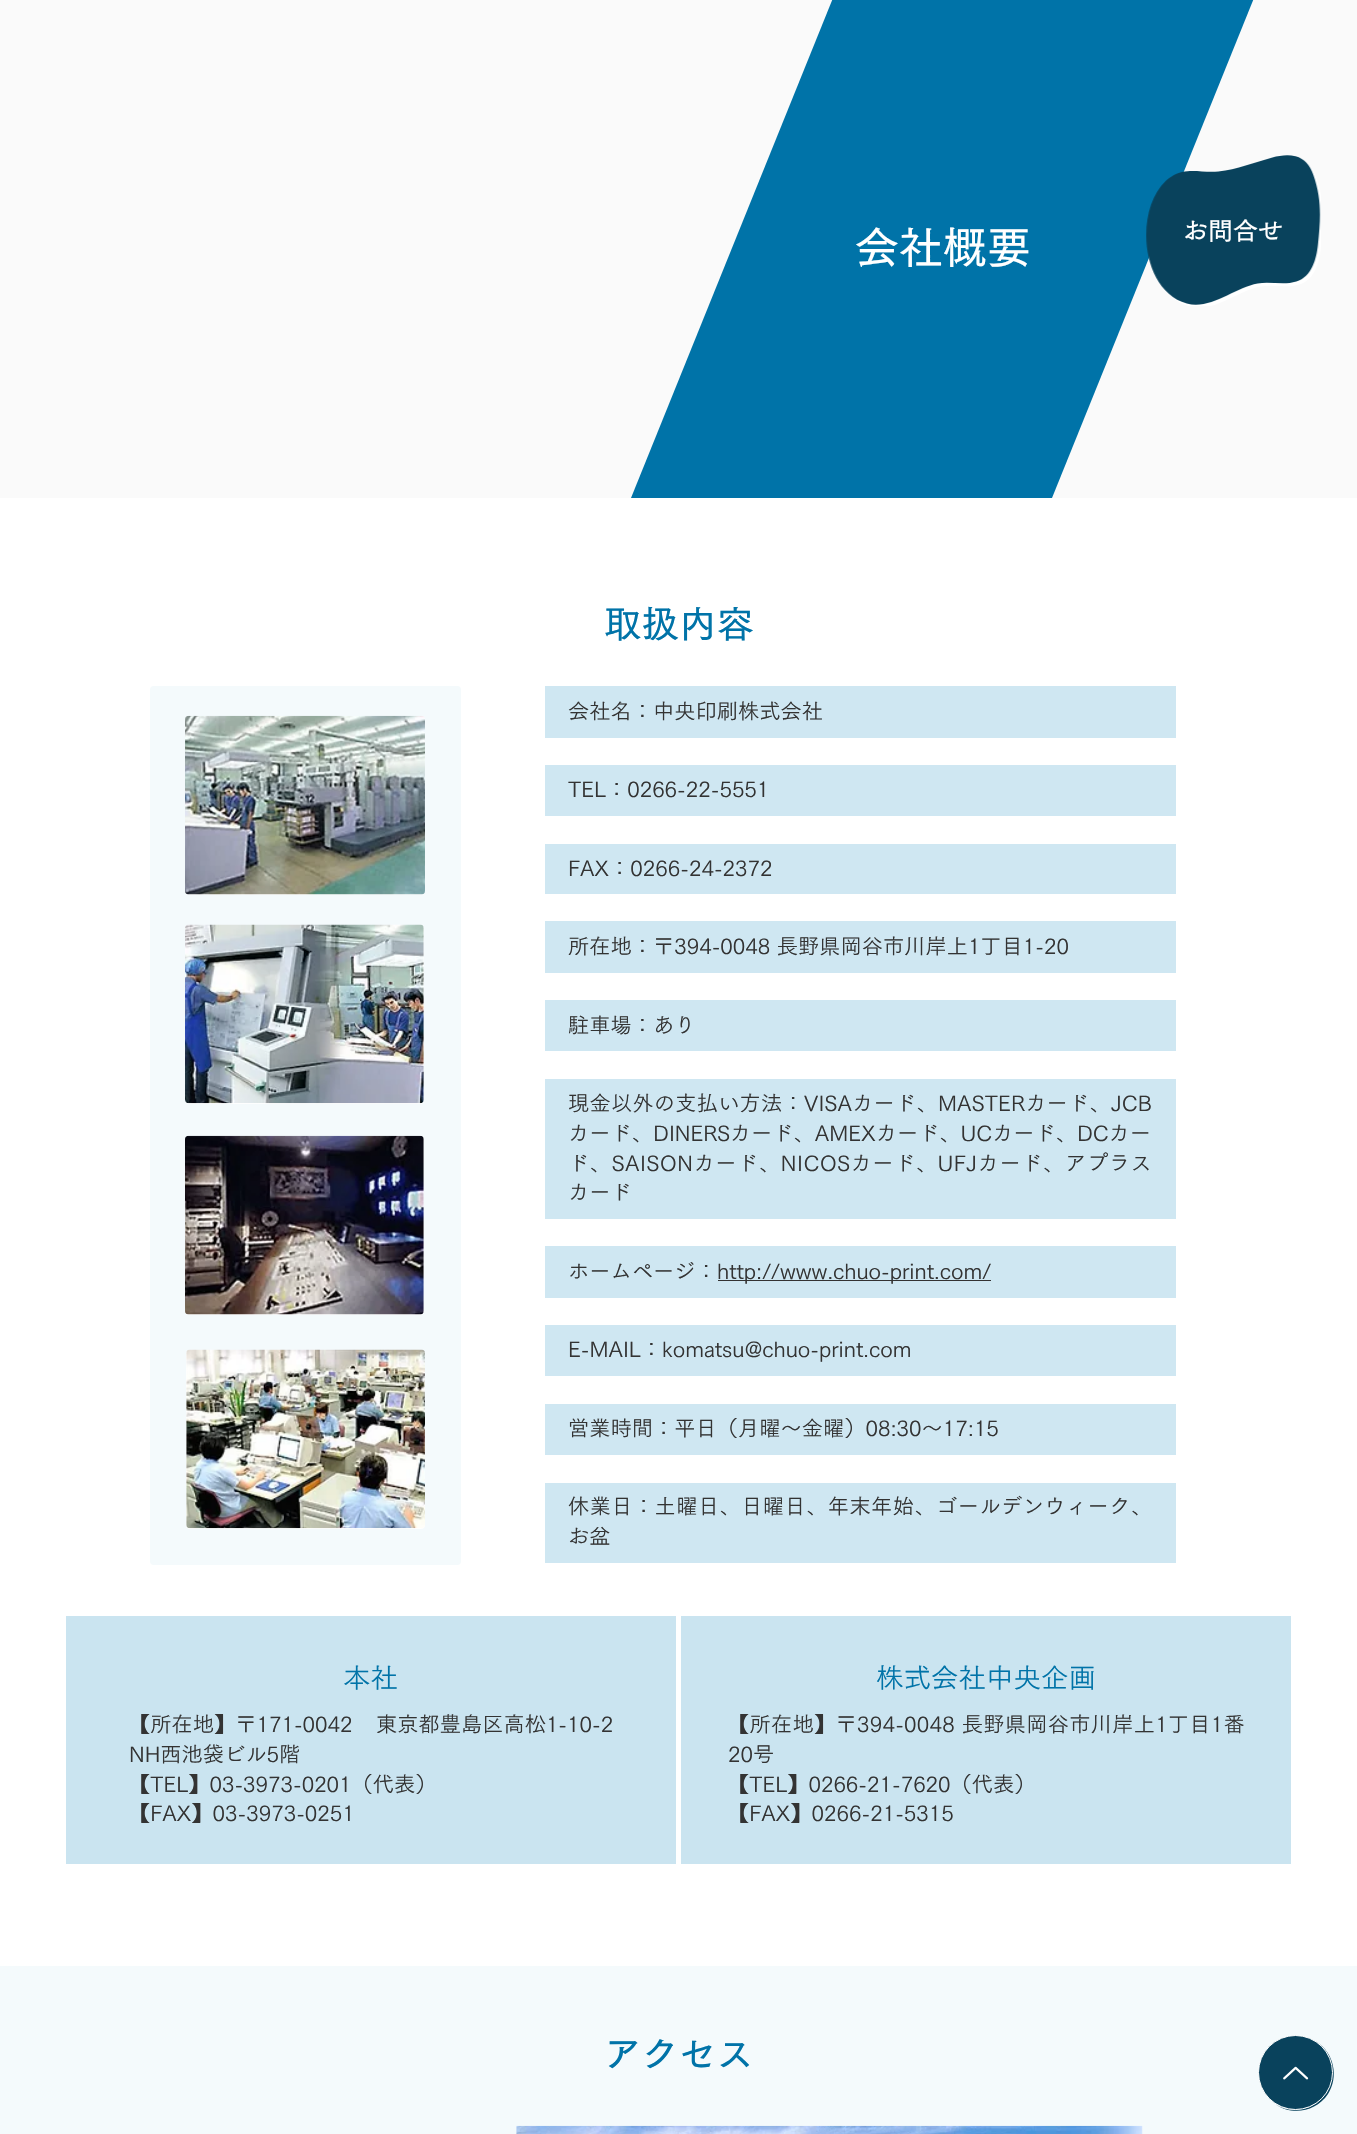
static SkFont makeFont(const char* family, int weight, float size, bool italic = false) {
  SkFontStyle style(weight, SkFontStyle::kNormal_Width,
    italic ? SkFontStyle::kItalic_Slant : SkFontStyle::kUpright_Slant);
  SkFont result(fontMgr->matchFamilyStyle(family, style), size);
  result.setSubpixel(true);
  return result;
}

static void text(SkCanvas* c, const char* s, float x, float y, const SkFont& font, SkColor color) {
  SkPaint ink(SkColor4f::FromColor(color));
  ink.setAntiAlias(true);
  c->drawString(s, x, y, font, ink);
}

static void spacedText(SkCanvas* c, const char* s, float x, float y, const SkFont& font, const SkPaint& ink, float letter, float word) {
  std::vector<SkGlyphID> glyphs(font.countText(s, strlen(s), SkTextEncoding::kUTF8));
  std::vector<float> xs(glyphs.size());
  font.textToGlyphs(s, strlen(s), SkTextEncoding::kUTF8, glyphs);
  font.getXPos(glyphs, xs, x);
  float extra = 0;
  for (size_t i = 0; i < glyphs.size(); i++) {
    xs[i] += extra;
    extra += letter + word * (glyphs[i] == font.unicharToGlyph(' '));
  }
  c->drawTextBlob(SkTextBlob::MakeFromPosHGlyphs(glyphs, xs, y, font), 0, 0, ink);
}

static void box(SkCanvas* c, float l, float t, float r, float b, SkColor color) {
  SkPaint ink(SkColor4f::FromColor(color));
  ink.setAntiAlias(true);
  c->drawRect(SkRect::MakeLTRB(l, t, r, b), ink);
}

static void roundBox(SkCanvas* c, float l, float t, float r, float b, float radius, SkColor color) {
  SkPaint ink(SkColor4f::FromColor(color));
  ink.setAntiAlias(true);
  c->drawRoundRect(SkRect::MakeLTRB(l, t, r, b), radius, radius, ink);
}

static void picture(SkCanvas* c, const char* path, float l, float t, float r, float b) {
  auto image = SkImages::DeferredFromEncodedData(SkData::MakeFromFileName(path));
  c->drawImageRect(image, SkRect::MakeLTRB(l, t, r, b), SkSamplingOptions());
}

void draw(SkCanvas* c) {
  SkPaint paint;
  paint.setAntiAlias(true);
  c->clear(0xffffffff);
  box(c, 0, 0, 1357, 498, 0xfffafafa);
  paint.setColor(0xff0073a8);
  c->drawPath(SkPathBuilder().moveTo(1052, 498).lineTo(631, 498).lineTo(833, -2).lineTo(1254, -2).close().detach(), paint);
  picture(c, "img_01.png", 1146, 155, 1321, 306);
  SkFont face1 = makeFont("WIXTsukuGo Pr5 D", 600, 25);
  text(c, "お問合せ", 1183, 240, face1, 0xffffffff);
  SkFont face2 = makeFont("WIXTsukuGo Pr5 D", 600, 44);
  text(c, "会社概要", 855, 264, face2, 0xffffffff);
  SkFont face3 = makeFont("WIXTsukuGo Pr5 D", 600, 37.5f);
  text(c, "取扱内容", 604, 638, face3, 0xff0073a8);
  roundBox(c, 150, 686, 461, 1565, 4, 0xfff4fafc);
  roundBox(c, 185, 716, 425, 895, 4, 0xffffffff);
  picture(c, "img_02.png", 185, 715, 425, 895);
  roundBox(c, 185, 925, 424, 1104, 4, 0xffffffff);
  picture(c, "img_03.png", 185, 924, 424, 1104);
  roundBox(c, 185, 1136, 424, 1315, 4, 0xffffffff);
  picture(c, "img_04.png", 185, 1135, 424, 1315);
  roundBox(c, 186, 1350, 425, 1529, 4, 0xffffffff);
  picture(c, "img_05.png", 186, 1349, 425, 1529);
  box(c, 545, 686, 1176, 738, 0xffcfe7f2);
  SkFont face4 = makeFont("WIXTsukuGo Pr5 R", 400, 21.25f);
  text(c, "会社名：中央印刷株式会社", 568, 719, face4, 0xff333333);
  box(c, 545, 765, 1176, 816, 0xffcfe7f2);
  text(c, "TEL：0266-22-5551", 568, 797, face4, 0xff333333);
  box(c, 545, 844, 1176, 894, 0xffcfe7f2);
  text(c, "FAX：0266-24-2372", 568, 876, face4, 0xff333333);
  box(c, 545, 921, 1176, 973, 0xffcfe7f2);
  text(c, "所在地：〒394-0048 長野県岡谷市川岸上1丁目1-20", 568, 954, face4, 0xff333333);
  box(c, 545, 1000, 1176, 1051, 0xffcfe7f2);
  text(c, "駐車場：あり", 568, 1033, face4, 0xff333333);
  box(c, 545, 1079, 1176, 1219, 0xffcfe7f2);
  paint.setColor(0xff333333);
  spacedText(c, "現金以外の支払い方法：VISAカード、MASTERカード、JCB", 568, 1111, face4, paint, 0.2f, 0);
  text(c, "カード、DINERSカード、AMEXカード、UCカード、DCカー", 568, 1141, face4, 0xff333333);
  spacedText(c, "ド、SAISONカード、NICOSカード、UFJカード、アプラス", 568, 1171, face4, paint, 0.6f, 0);
  text(c, "カード", 568, 1200, face4, 0xff333333);
  box(c, 545, 1246, 1176, 1298, 0xffcfe7f2);
  text(c, "ホームページ：", 568, 1279, face4, 0xff333333);
  box(c, 718, 1280, 991, 1281, 0xff333333);
  text(c, "http://www.chuo-print.com/", 717, 1279, face4, 0xff333333);
  box(c, 545, 1325, 1176, 1376, 0xffcfe7f2);
  text(c, "E-MAIL：komatsu@chuo-print.com", 568, 1357, face4, 0xff333333);
  box(c, 545, 1404, 1176, 1455, 0xffcfe7f2);
  text(c, "営業時間：平日（月曜～金曜）08:30～17:15", 568, 1436, face4, 0xff333333);
  box(c, 545, 1483, 1176, 1563, 0xffcfe7f2);
  spacedText(c, "休業日：土曜日、日曜日、年末年始、ゴールデンウィーク、", 568, 1514, face4, paint, 0.4f, 0);
  text(c, "お盆", 568, 1544, face4, 0xff333333);
  box(c, 66, 1616, 676, 1864, 0xffcae4f0);
  SkFont face5 = makeFont("WIXTsukuGo Pr5 R", 400, 27.5f);
  text(c, "本社", 343, 1688, face5, 0xff0073a8);
  spacedText(c, "【所在地】〒171-0042 東京都豊島区高松1-10-2", 129, 1732, face4, paint, 0, 17);
  text(c, "NH西池袋ビル5階", 129, 1762, face4, 0xff333333);
  text(c, "【TEL】03-3973-0201（代表）", 129, 1792, face4, 0xff333333);
  text(c, "【FAX】03-3973-0251", 129, 1821, face4, 0xff333333);
  box(c, 681, 1616, 1291, 1864, 0xffcae4f0);
  text(c, "株式会社中央企画", 876, 1688, face5, 0xff0073a8);
  spacedText(c, "【所在地】〒394-0048 長野県岡谷市川岸上1丁目1番", 728, 1732, face4, paint, 0.25f, 0);
  text(c, "20号", 728, 1762, face4, 0xff333333);
  text(c, "【TEL】0266-21-7620（代表）", 728, 1792, face4, 0xff333333);
  text(c, "【FAX】0266-21-5315", 728, 1821, face4, 0xff333333);
  box(c, 0, 1966, 1357, 2134, 0xfff4fafc);
  text(c, "アクセス", 604, 2068, face3, 0xff0073a8);
  picture(c, "img_06.png", 516, 2125, 1143, 2134);
  paint.setColor(0xff09425c);
  c->drawPath(SkPathBuilder().moveTo(1275, 2104).cubicTo(1292, 2116, 1316, 2112, 1328, 2094).cubicTo(1339, 2077, 1334, 2053, 1317, 2042).cubicTo(1333, 2053, 1337, 2077, 1326, 2093).cubicTo(1315, 2110, 1292, 2115, 1275, 2104).close().detach(), paint);
  c->drawCircle(1295.5f, 2072.5f, 37, paint);
  paint.setStyle(SkPaint::kStroke_Style);
  paint.setStrokeWidth(1);
  paint.setColor(0xffffffff);
  c->drawCircle(1295.5f, 2072.5f, 37, paint);
  picture(c, "img_07.png", 1283, 2066, 1309, 2080);
}
